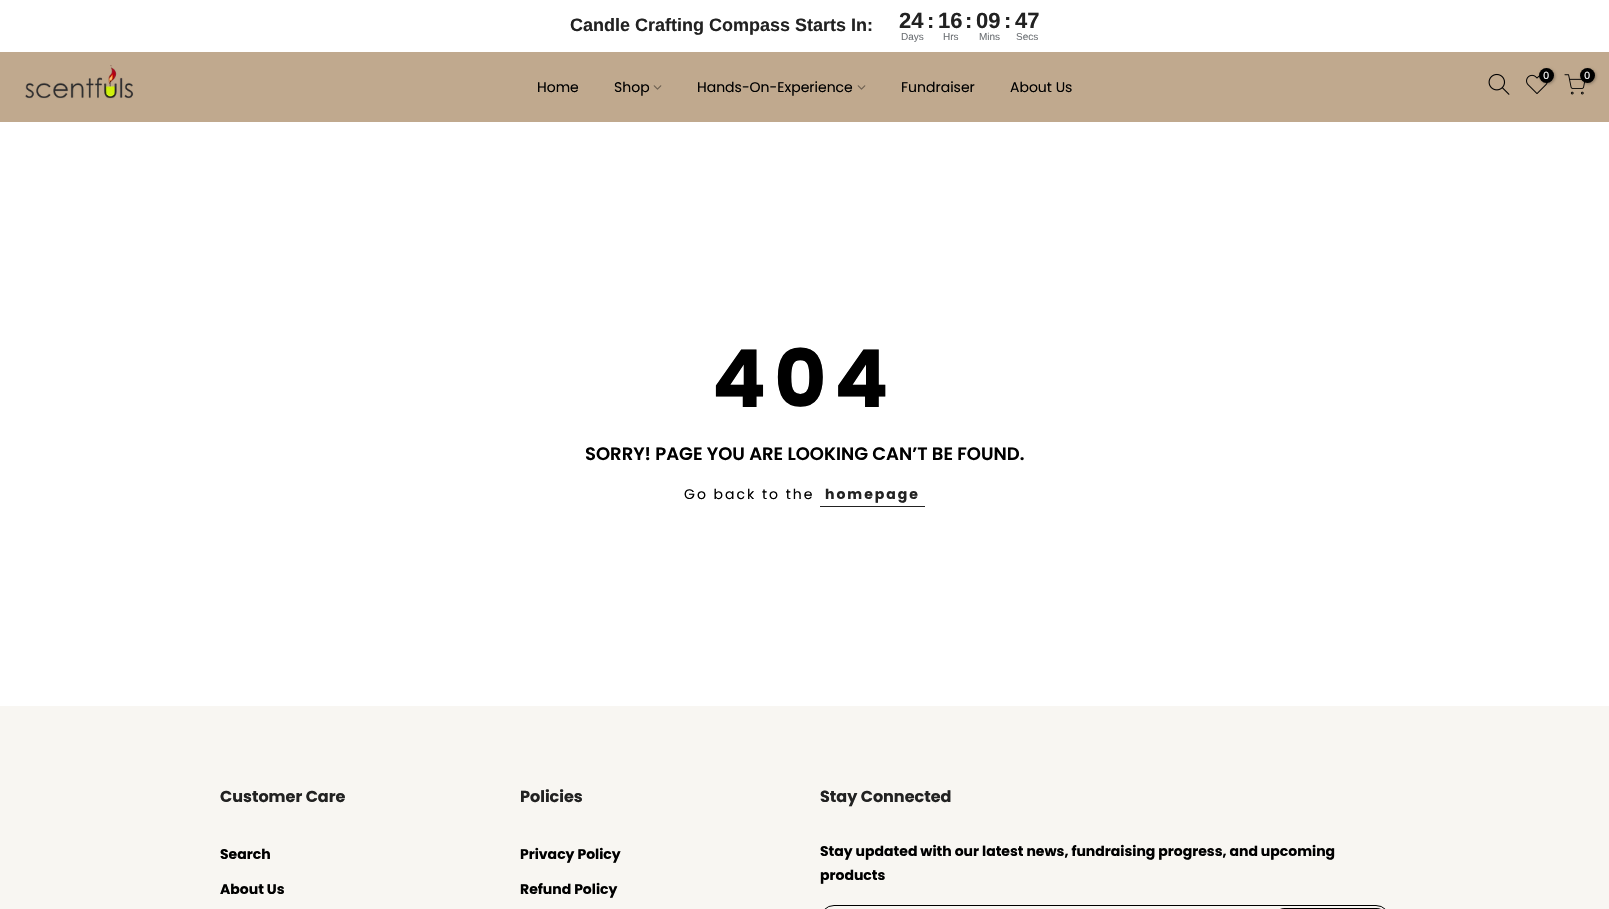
static SkFont makeFont(const char* family, int weight, float size, bool italic = false) {
  SkFontStyle style(weight, SkFontStyle::kNormal_Width,
    italic ? SkFontStyle::kItalic_Slant : SkFontStyle::kUpright_Slant);
  SkFont result(fontMgr->matchFamilyStyle(family, style), size);
  result.setSubpixel(true);
  return result;
}

static void text(SkCanvas* c, const char* s, float x, float y, const SkFont& font, SkColor color) {
  SkPaint ink(SkColor4f::FromColor(color));
  ink.setAntiAlias(true);
  c->drawString(s, x, y, font, ink);
}

static void spacedText(SkCanvas* c, const char* s, float x, float y, const SkFont& font, const SkPaint& ink, float letter, float word) {
  std::vector<SkGlyphID> glyphs(font.countText(s, strlen(s), SkTextEncoding::kUTF8));
  std::vector<float> xs(glyphs.size());
  font.textToGlyphs(s, strlen(s), SkTextEncoding::kUTF8, glyphs);
  font.getXPos(glyphs, xs, x);
  float extra = 0;
  for (size_t i = 0; i < glyphs.size(); i++) {
    xs[i] += extra;
    extra += letter + word * (glyphs[i] == font.unicharToGlyph(' '));
  }
  c->drawTextBlob(SkTextBlob::MakeFromPosHGlyphs(glyphs, xs, y, font), 0, 0, ink);
}

static void box(SkCanvas* c, float l, float t, float r, float b, SkColor color) {
  SkPaint ink(SkColor4f::FromColor(color));
  ink.setAntiAlias(true);
  c->drawRect(SkRect::MakeLTRB(l, t, r, b), ink);
}

static void roundBox(SkCanvas* c, float l, float t, float r, float b, float radius, SkColor color) {
  SkPaint ink(SkColor4f::FromColor(color));
  ink.setAntiAlias(true);
  c->drawRoundRect(SkRect::MakeLTRB(l, t, r, b), radius, radius, ink);
}

static void picture(SkCanvas* c, const char* path, float l, float t, float r, float b) {
  auto image = SkImages::DeferredFromEncodedData(SkData::MakeFromFileName(path));
  c->drawImageRect(image, SkRect::MakeLTRB(l, t, r, b), SkSamplingOptions());
}

void draw(SkCanvas* c) {
  SkPaint paint;
  paint.setAntiAlias(true);
  c->clear(0xffffffff);
  SkFont face1 = makeFont("Liberation Sans", 700, 18);
  text(c, "Candle Crafting Compass Starts In:", 570, 31, face1, 0xff222222);
  SkFont face2 = makeFont("Liberation Sans", 700, 22);
  text(c, "24", 899, 28, face2, 0xff222222);
  text(c, ":", 927, 28, face2, 0xff222222);
  text(c, "16", 938, 28, face2, 0xff222222);
  text(c, ":", 965, 28, face2, 0xff222222);
  text(c, "09", 976, 28, face2, 0xff222222);
  text(c, ":", 1004, 28, face2, 0xff222222);
  text(c, "47", 1015, 28, face2, 0xff222222);
  SkFont face3 = makeFont("Liberation Sans", 400, 10);
  text(c, "Days", 901, 40, face3, 0xff6d7175);
  text(c, "Hrs", 943, 40, face3, 0xff6d7175);
  text(c, "Mins", 979, 40, face3, 0xff6d7175);
  text(c, "Secs", 1016, 40, face3, 0xff6d7175);
  box(c, 0, 52, 1609, 122, 0xffc0a98e);
  picture(c, "img_01.png", 25, 65, 134, 99);
  picture(c, "img_02.png", 1488, 73, 1510, 95);
  picture(c, "img_03.png", 1526, 74, 1548, 94);
  paint.setColor(0x4d000000);
  paint.setMaskFilter(SkMaskFilter::MakeBlur(kNormal_SkBlurStyle, 1.5f));
  c->drawRoundRect(SkRect::MakeLTRB(1540, 69, 1555, 84), 7.5f, 7.5f, paint);
  paint.setMaskFilter(nullptr);
  paint.setColor(0xff000000);
  c->drawCircle(1546.5f, 75.5f, 7.5f, paint);
  SkFont face4 = makeFont("Poppins", 400, 10);
  text(c, "0", 1543, 79, face4, 0xffffffff);
  picture(c, "img_04.png", 1564, 74, 1585, 95);
  paint.setColor(0x4d000000);
  paint.setMaskFilter(SkMaskFilter::MakeBlur(kNormal_SkBlurStyle, 1.5f));
  c->drawRoundRect(SkRect::MakeLTRB(1581, 69, 1596, 84), 7.5f, 7.5f, paint);
  paint.setMaskFilter(nullptr);
  paint.setColor(0xff000000);
  c->drawCircle(1587.5f, 75.5f, 7.5f, paint);
  text(c, "0", 1584, 79, face4, 0xffffffff);
  SkFont face5 = makeFont("Poppins", 400, 14);
  text(c, "Home", 537, 92, face5, 0xff000000);
  text(c, "Shop", 614, 92, face5, 0xff000000);
  picture(c, "img_05.png", 653, 85, 662, 90);
  text(c, "Hands-On-Experience", 697, 92, face5, 0xff000000);
  picture(c, "img_05.png", 857, 85, 866, 90);
  text(c, "Fundraiser", 901, 92, face5, 0xff000000);
  text(c, "About Us", 1010, 92, face5, 0xff000000);
  SkFont face6 = makeFont("Poppins", 700, 80);
  spacedText(c, "404", 712, 407, face6, paint, 8, 0);
  SkFont face7 = makeFont("Poppins", 600, 18);
  text(c, "SORRY! PAGE YOU ARE LOOKING CAN’T BE FOUND.", 585, 460, face7, 0xff000000);
  spacedText(c, "Go back to the", 684, 499, face5, paint, 2, 0);
  SkFont face8 = makeFont("Poppins", 700, 14);
  paint.setColor(0xff222222);
  spacedText(c, "homepage", 825, 499, face8, paint, 2, 0);
  box(c, 820, 506, 925, 507, 0xff222222);
  box(c, 0, 706, 1609, 909, 0xfff8f6f2);
  SkFont face9 = makeFont("Poppins", 700, 16);
  text(c, "Customer Care", 220, 802, face9, 0xff222222);
  text(c, "Search", 220, 859, face8, 0xff000000);
  text(c, "About Us", 220, 894, face8, 0xff000000);
  text(c, "Policies", 520, 802, face9, 0xff222222);
  text(c, "Privacy Policy", 520, 859, face8, 0xff000000);
  text(c, "Refund Policy", 520, 894, face8, 0xff000000);
  text(c, "Stay Connected", 820, 802, face9, 0xff222222);
  text(c, "Stay updated with our latest news, fundraising progress, and upcoming", 820, 856, face8, 0xff000000);
  text(c, "products", 820, 880, face8, 0xff000000);
  paint.setStyle(SkPaint::kStroke_Style);
  paint.setStrokeWidth(1);
  paint.setColor(0xff000000);
  c->drawRoundRect(SkRect::MakeLTRB(820.5f, 905.5f, 1389.5f, 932.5f), 22.5f, 22.5f, paint);
  roundBox(c, 1274, 908, 1387, 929, 20, 0xff000000);
}
